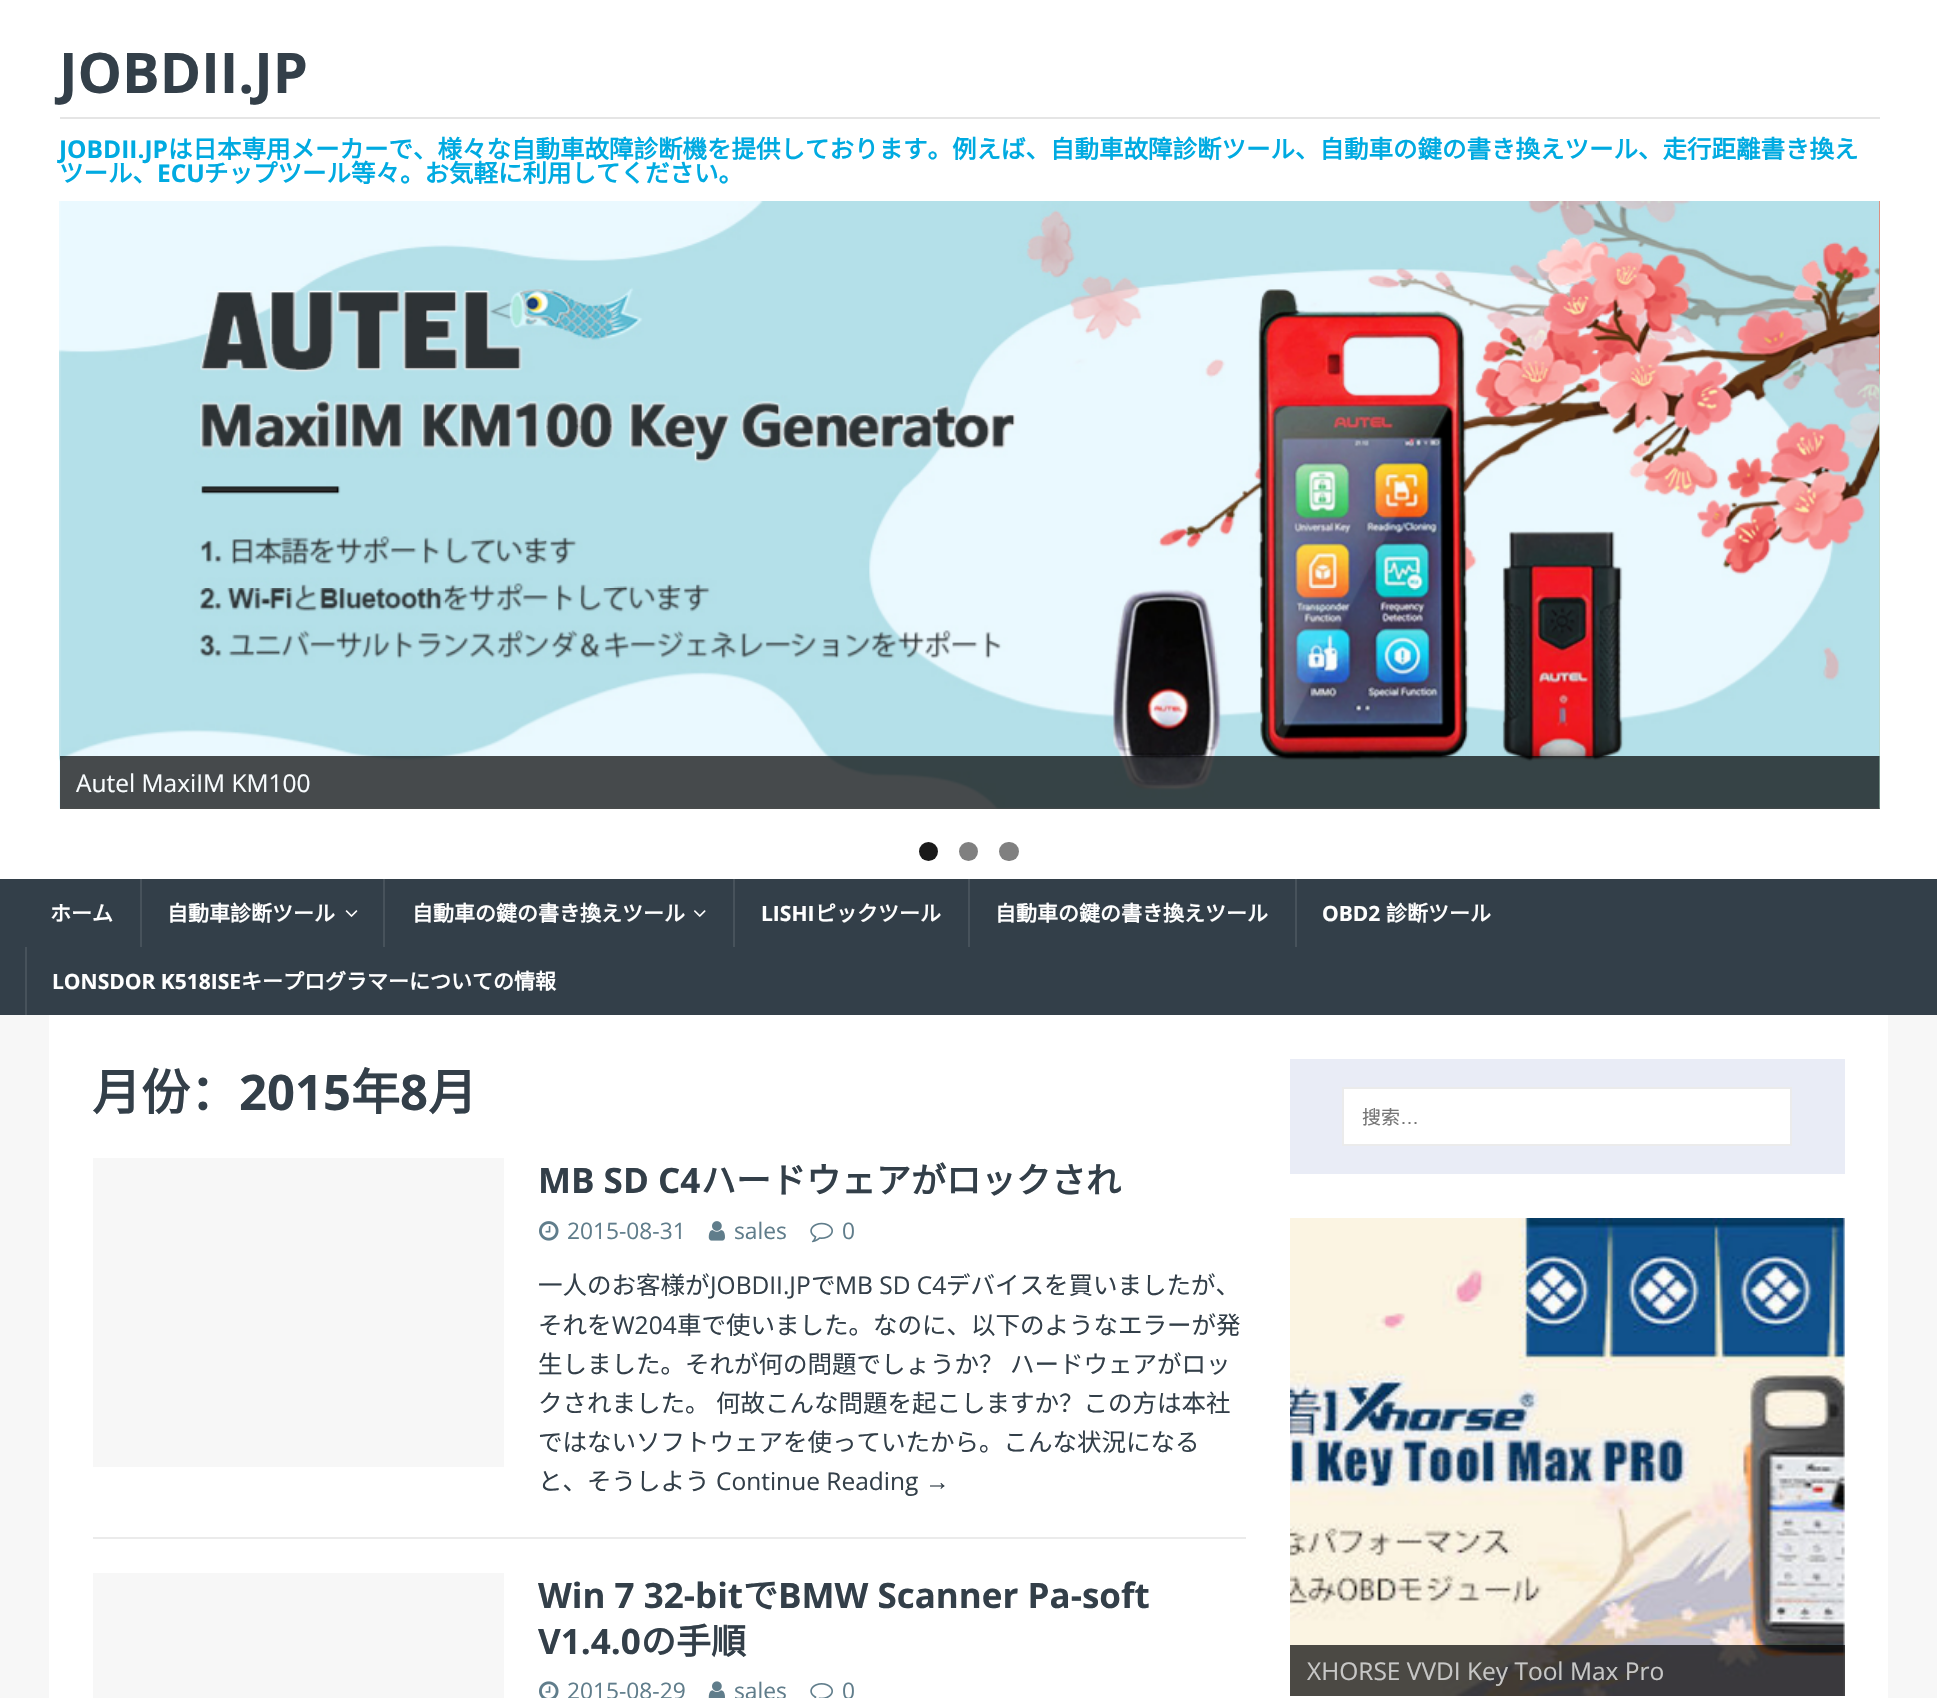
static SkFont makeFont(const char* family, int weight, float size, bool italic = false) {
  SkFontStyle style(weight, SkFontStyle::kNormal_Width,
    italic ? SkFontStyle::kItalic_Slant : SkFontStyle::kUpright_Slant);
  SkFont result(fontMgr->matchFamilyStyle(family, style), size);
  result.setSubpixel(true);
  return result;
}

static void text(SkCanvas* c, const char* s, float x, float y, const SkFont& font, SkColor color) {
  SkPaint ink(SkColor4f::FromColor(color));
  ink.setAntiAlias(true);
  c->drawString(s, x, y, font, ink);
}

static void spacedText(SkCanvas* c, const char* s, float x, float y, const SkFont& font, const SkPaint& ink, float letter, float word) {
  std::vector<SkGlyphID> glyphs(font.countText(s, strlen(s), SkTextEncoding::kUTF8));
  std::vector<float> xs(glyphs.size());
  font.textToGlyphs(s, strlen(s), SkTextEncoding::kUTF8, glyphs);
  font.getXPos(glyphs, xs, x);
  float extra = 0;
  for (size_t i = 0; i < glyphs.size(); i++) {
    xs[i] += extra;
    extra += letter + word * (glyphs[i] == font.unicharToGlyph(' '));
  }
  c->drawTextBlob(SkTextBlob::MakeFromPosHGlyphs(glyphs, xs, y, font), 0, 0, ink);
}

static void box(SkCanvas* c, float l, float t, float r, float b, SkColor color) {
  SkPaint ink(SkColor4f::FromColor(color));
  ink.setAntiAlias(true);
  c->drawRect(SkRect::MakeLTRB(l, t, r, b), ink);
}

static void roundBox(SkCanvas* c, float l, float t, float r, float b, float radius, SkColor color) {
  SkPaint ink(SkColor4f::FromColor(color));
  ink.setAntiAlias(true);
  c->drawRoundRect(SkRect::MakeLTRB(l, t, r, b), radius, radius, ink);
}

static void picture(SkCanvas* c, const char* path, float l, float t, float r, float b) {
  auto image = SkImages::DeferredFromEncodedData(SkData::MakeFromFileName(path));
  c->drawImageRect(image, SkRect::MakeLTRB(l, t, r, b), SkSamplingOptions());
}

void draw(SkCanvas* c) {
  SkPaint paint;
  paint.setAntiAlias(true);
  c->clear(0xfff7f7f7);
  box(c, 0, 0, 1937, 879, 0xffffffff);
  SkFont face1 = makeFont("Open Sans", 700, 56);
  text(c, "JOBDII.JP", 59, 93, face1, 0xff333f49);
  box(c, 60, 117, 1880, 119, 0xffe5e5e5);
  SkFont face2 = makeFont("Open Sans", 700, 24.5f);
  text(c, "JOBDII.JP", 59, 158, face2, 0xff00aae1);
  SkFont face3 = makeFont("Noto Sans CJK SC", 700, 24.5f);
  text(c, "は日本専用メーカーで、様々な自動車故障診断機を提供しております。例えば、自動車故障診断ツール、自動車の鍵の書き換えツール、走行距離書き換え", 168, 158, face3, 0xff00aae1);
  text(c, "ツール、", 59, 182, face3, 0xff00aae1);
  text(c, "ECU", 157, 182, face2, 0xff00aae1);
  text(c, "チップツール等々。お気軽に利用してください。", 204, 182, face3, 0xff00aae1);
  picture(c, "img_01.png", 59, 201, 1880, 809);
  box(c, 60, 756, 1880, 809, 0xb3000000);
  SkFont face4 = makeFont("Open Sans", 400, 24.5f);
  text(c, "Autel MaxiIM KM100", 76, 792, face4, 0xfff9fdff);
  picture(c, "img_02.png", 1879, 201, 1880, 809);
  paint.setColor(0xff1a1a1a);
  c->drawCircle(928.5f, 851.5f, 9.5f, paint);
  paint.setColor(0xff808080);
  c->drawCircle(968.5f, 851.5f, 9.5f, paint);
  roundBox(c, 999, 842, 1019, 861, 9.5f, 0xff808080);
  box(c, 0, 879, 1937, 1015, 0xff333f49);
  SkFont face5 = makeFont("Noto Sans CJK SC", 700, 21);
  text(c, "ホーム", 50, 921, face5, 0xffffffff);
  box(c, 140, 879, 142, 947, 0xff47525b);
  text(c, "自動車診断ツール", 167, 921, face5, 0xffffffff);
  picture(c, "img_03.png", 345, 910, 358, 917);
  box(c, 383, 879, 385, 947, 0xff47525b);
  text(c, "自動車の鍵の書き換えツール", 412, 921, face5, 0xffffffff);
  picture(c, "img_04.png", 694, 910, 706, 917);
  box(c, 733, 879, 735, 947, 0xff47525b);
  SkFont face6 = makeFont("Open Sans", 700, 21);
  text(c, "LISHI", 761, 921, face6, 0xffffffff);
  text(c, "ピックツール", 815, 921, face5, 0xffffffff);
  box(c, 968, 879, 970, 947, 0xff47525b);
  text(c, "自動車の鍵の書き換えツール", 995, 921, face5, 0xffffffff);
  box(c, 1295, 879, 1297, 947, 0xff47525b);
  text(c, "OBD2", 1322, 921, face6, 0xffffffff);
  text(c, "診断ツール", 1386, 921, face5, 0xffffffff);
  box(c, 25, 947, 27, 1015, 0xff47525b);
  text(c, "LONSDOR K518ISE", 52, 989, face6, 0xffffffff);
  text(c, "キープログラマーについての情報", 241, 989, face5, 0xffffffff);
  box(c, 49, 1015, 1888, 1698, 0xffffffff);
  SkFont face7 = makeFont("Noto Sans CJK SC", 700, 49);
  text(c, "月份：", 92, 1110, face7, 0xff333f49);
  SkFont face8 = makeFont("Open Sans", 700, 49);
  text(c, "2015", 239, 1110, face8, 0xff333f49);
  text(c, "年", 351, 1110, face7, 0xff333f49);
  text(c, "8", 400, 1110, face8, 0xff333f49);
  text(c, "月", 428, 1110, face7, 0xff333f49);
  box(c, 93, 1537, 1246, 1539, 0xffebebeb);
  box(c, 93, 1158, 504, 1467, 0xfff7f7f7);
  SkFont face9 = makeFont("Open Sans", 700, 35);
  text(c, "MB SD C4", 538, 1193, face9, 0xff333f49);
  SkFont face10 = makeFont("Noto Sans CJK SC", 700, 35);
  text(c, "ハードウェアがロックされ", 701, 1193, face10, 0xff333f49);
  picture(c, "img_05.png", 539, 1221, 559, 1241);
  SkFont face11 = makeFont("Open Sans", 400, 22.75f);
  text(c, "2015-08-31", 567, 1239, face11, 0xff607d8b);
  picture(c, "img_06.png", 708, 1221, 725, 1241);
  text(c, "sales", 734, 1239, face11, 0xff607d8b);
  picture(c, "img_07.png", 810, 1222, 833, 1243);
  text(c, "0", 842, 1239, face11, 0xff607d8b);
  SkFont face12 = makeFont("Noto Sans CJK SC", 400, 24.5f);
  text(c, "一人のお客様が", 538, 1294, face12, 0xff333f49);
  text(c, "JOBDII.JP", 710, 1294, face4, 0xff333f49);
  text(c, "で", 811, 1294, face12, 0xff333f49);
  text(c, "MB SD C4", 835, 1294, face4, 0xff333f49);
  text(c, "デバイスを買いましたが、", 946, 1294, face12, 0xff333f49);
  text(c, "それを", 538, 1334, face12, 0xff333f49);
  text(c, "W204", 612, 1334, face4, 0xff333f49);
  text(c, "車で使いました。なのに、以下のようなエラーが発", 677, 1334, face12, 0xff333f49);
  text(c, "生しました。それが何の問題でしょうか？", 538, 1373, face12, 0xff333f49);
  text(c, "ハードウェアがロッ", 1010, 1373, face12, 0xff333f49);
  paint.setColor(0xff333f49);
  spacedText(c, "クされました。 何故こんな問題を起こしますか？この方は本社", 538, 1412, face12, paint, 0, 1);
  text(c, "ではないソフトウェアを使っていたから。こんな状況になる", 538, 1451, face12, 0xff333f49);
  text(c, "と、そうしよう", 538, 1490, face12, 0xff333f49);
  text(c, "Continue Reading", 716, 1490, face4, 0xff333f49);
  SkFont face13 = makeFont("Liberation Sans", 400, 24.5f);
  text(c, "→", 925, 1490, face13, 0xff333f49);
  box(c, 93, 1573, 504, 1698, 0xfff7f7f7);
  text(c, "Win 7 32-bit", 538, 1608, face9, 0xff333f49);
  text(c, "で", 743, 1608, face10, 0xff333f49);
  text(c, "BMW Scanner Pa-soft", 778, 1608, face9, 0xff333f49);
  text(c, "V1.4.0", 538, 1654, face9, 0xff333f49);
  text(c, "の手順", 641, 1654, face10, 0xff333f49);
  picture(c, "img_08.png", 539, 1681, 559, 1698);
  text(c, "2015-08-29", 567, 1699, face11, 0xff607d8b);
  picture(c, "img_09.png", 708, 1681, 725, 1698);
  text(c, "sales", 734, 1699, face11, 0xff607d8b);
  picture(c, "img_10.png", 810, 1683, 833, 1698);
  text(c, "0", 842, 1699, face11, 0xff607d8b);
  box(c, 1290, 1059, 1845, 1174, 0xffe9ecf6);
  paint.setColor(0xffffffff);
  c->drawRect(SkRect::MakeLTRB(1343, 1088, 1791, 1145), paint);
  paint.setStyle(SkPaint::kStroke_Style);
  paint.setStrokeWidth(2);
  paint.setColor(0xffebebeb);
  c->drawRect(SkRect::MakeLTRB(1343, 1088, 1791, 1145), paint);
  SkFont face14 = makeFont("Noto Sans CJK SC", 400, 19);
  text(c, "搜索", 1362, 1124, face14, 0xff757575);
  SkFont face15 = makeFont("Liberation Sans", 400, 19);
  text(c, "…", 1400, 1124, face15, 0xff757575);
  picture(c, "img_11.png", 1290, 1218, 1845, 1696);
  box(c, 1290, 1645, 1845, 1696, 0xb3000000);
  text(c, "XHORSE VVDI Key Tool Max Pro", 1307, 1680, face4, 0xffc7c7c6);
}
